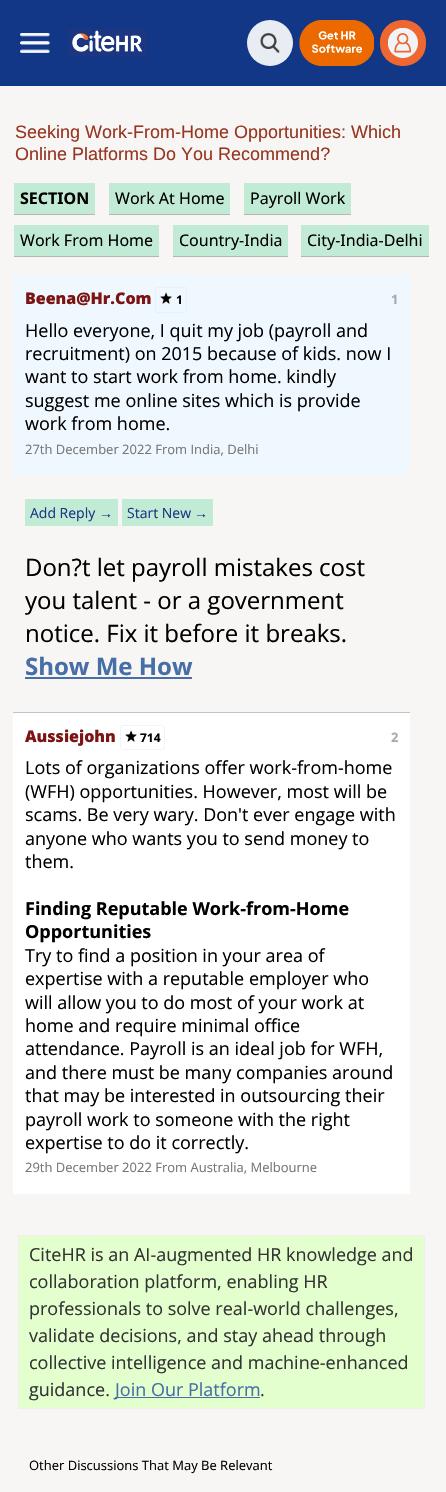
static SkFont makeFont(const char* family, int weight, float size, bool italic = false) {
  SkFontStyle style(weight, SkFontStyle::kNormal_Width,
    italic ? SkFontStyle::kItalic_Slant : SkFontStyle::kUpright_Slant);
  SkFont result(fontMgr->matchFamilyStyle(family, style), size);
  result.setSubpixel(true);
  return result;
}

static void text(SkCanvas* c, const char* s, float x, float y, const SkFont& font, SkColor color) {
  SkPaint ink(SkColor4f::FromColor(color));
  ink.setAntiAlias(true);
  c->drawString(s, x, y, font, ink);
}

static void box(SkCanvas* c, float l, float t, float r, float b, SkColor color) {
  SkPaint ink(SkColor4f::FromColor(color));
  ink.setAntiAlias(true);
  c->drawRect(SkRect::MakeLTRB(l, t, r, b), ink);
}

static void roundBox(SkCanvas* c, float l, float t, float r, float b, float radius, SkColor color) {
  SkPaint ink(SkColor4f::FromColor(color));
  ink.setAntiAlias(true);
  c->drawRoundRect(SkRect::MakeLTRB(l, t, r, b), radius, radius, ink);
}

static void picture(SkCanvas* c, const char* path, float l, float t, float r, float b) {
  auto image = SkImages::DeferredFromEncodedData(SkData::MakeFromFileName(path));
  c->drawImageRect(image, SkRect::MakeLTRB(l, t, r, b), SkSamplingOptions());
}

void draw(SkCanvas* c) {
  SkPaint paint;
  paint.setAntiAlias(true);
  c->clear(0xfff7f6f5);
  box(c, 0, 0, 446, 86, 0xff123787);
  picture(c, "img_01.png", 20, 33, 50, 53);
  picture(c, "img_02.png", 68, 29, 147, 57);
  paint.setColor(0xffe7edf2);
  c->drawCircle(270, 43, 23, paint);
  picture(c, "img_03.png", 260, 33, 280, 53);
  picture(c, "img_04.png", 299, 20, 374, 66);
  roundBox(c, 380, 20, 426, 66, 22, 0xffef6730);
  picture(c, "img_05.png", 388, 28, 418, 58);
  SkFont face1 = makeFont("Liberation Sans", 400, 18);
  text(c, "Seeking Work-From-Home Opportunities: Which", 15, 138, face1, 0xff973722);
  text(c, "Online Platforms Do You Recommend?", 15, 160, face1, 0xff973722);
  box(c, 109, 183, 230, 214, 0xffc2ebd5);
  box(c, 109, 214, 230, 215, 0xffb5b5b5);
  SkFont face2 = makeFont("Noto Sans", 400, 16);
  text(c, "Work At Home", 115, 204, face2, 0xff000000);
  box(c, 244, 183, 351, 214, 0xffc2ebd5);
  box(c, 244, 214, 351, 215, 0xffb5b5b5);
  text(c, "Payroll Work", 250, 204, face2, 0xff000000);
  box(c, 14, 225, 159, 256, 0xffc2ebd5);
  box(c, 14, 256, 159, 257, 0xffb5b5b5);
  text(c, "Work From Home", 20, 246, face2, 0xff000000);
  box(c, 173, 225, 288, 256, 0xffc2ebd5);
  box(c, 173, 256, 288, 257, 0xffb5b5b5);
  text(c, "Country-India", 179, 246, face2, 0xff000000);
  box(c, 301, 225, 429, 256, 0xffc2ebd5);
  box(c, 301, 256, 429, 257, 0xffb5b5b5);
  text(c, "City-India-Delhi", 307, 246, face2, 0xff000000);
  box(c, 14, 183, 95, 214, 0xffc2ebd5);
  box(c, 14, 214, 95, 215, 0xffb5b5b5);
  SkFont face3 = makeFont("Noto Sans", 700, 16);
  text(c, "SECTION", 20, 204, face3, 0xff000000);
  box(c, 13, 275, 410, 475, 0xfff0f8ff);
  SkFont face4 = makeFont("Open Sans", 800, 16);
  text(c, "Beena@Hr.Com", 25, 304, face4, 0xff7d1414);
  paint.setStyle(SkPaint::kStroke_Style);
  paint.setStrokeWidth(1);
  paint.setColor(0xffdcebfa);
  paint.setPathEffect(SkDashPathEffect::Make({{1, 1}}, 0));
  c->drawPath(SkPathBuilder().moveTo(158, 287.5f).lineTo(184, 287.5f).cubicTo(185.5f, 287.5f, 186.5f, 288.5f, 186.5f, 290).lineTo(186.5f, 310).cubicTo(186.5f, 311.5f, 185.5f, 312.5f, 184, 312.5f).lineTo(158, 312.5f).cubicTo(156.5f, 312.5f, 155.5f, 311.5f, 155.5f, 310).lineTo(155.5f, 290).cubicTo(155.5f, 288.5f, 156.5f, 287.5f, 158, 287.5f).close().detach(), paint);
  paint.setPathEffect(nullptr);
  picture(c, "img_06.png", 160, 292, 172, 304);
  SkFont face5 = makeFont("Open Sans", 700, 12);
  text(c, "1", 176, 304, face5, 0xff000000);
  SkFont face6 = makeFont("Open Sans", 700, 13);
  text(c, "1", 391, 304, face6, 0xffaaaaaa);
  SkFont face7 = makeFont("Open Sans", 400, 18);
  text(c, "Hello everyone, I quit my job (payroll and", 25, 337, face7, 0xff000000);
  text(c, "recruitment) on 2015 because of kids. now I", 25, 360, face7, 0xff000000);
  text(c, "want to start work from home. kindly", 25, 383, face7, 0xff000000);
  text(c, "suggest me online sites which is provide", 25, 407, face7, 0xff000000);
  text(c, "work from home.", 25, 430, face7, 0xff000000);
  SkFont face8 = makeFont("Open Sans", 400, 13);
  text(c, "27th December 2022 From India, Delhi", 25, 454, face8, 0xff777777);
  box(c, 25, 499, 118, 526, 0xffc2ebd5);
  SkFont face9 = makeFont("Open Sans", 400, 14);
  text(c, "Add Reply", 30, 518, face9, 0xff1c3682);
  SkFont face10 = makeFont("Liberation Sans", 400, 14);
  text(c, "→", 99, 518, face10, 0xff1c3682);
  box(c, 122, 499, 213, 526, 0xffc2ebd5);
  text(c, "Start New", 127, 518, face9, 0xff1c3682);
  text(c, "→", 194, 518, face10, 0xff1c3682);
  SkFont face11 = makeFont("Open Sans", 400, 24);
  text(c, "Don?t let payroll mistakes cost", 25, 576, face11, 0xff000000);
  text(c, "you talent - or a government", 25, 609, face11, 0xff000000);
  text(c, "notice. Fix it before it breaks.", 25, 642, face11, 0xff000000);
  SkFont face12 = makeFont("Open Sans", 700, 24);
  text(c, "Show Me How", 25, 675, face12, 0xff476ea7);
  box(c, 25, 677, 192, 679, 0xff476ea7);
  box(c, 13, 713, 410, 1194, 0xffffffff);
  box(c, 13, 712, 410, 713, 0xffc3c3c3);
  text(c, "Aussiejohn", 25, 742, face4, 0xff7d1414);
  paint.setPathEffect(SkDashPathEffect::Make({{1, 1}}, 0));
  c->drawPath(SkPathBuilder().moveTo(123, 725.5f).lineTo(162, 725.5f).cubicTo(163.5f, 725.5f, 164.5f, 726.5f, 164.5f, 728).lineTo(164.5f, 747).cubicTo(164.5f, 748.5f, 163.5f, 749.5f, 162, 749.5f).lineTo(123, 749.5f).cubicTo(121.5f, 749.5f, 120.5f, 748.5f, 120.5f, 747).lineTo(120.5f, 728).cubicTo(120.5f, 726.5f, 121.5f, 725.5f, 123, 725.5f).close().detach(), paint);
  paint.setPathEffect(nullptr);
  picture(c, "img_07.png", 125, 730, 137, 742);
  text(c, "714", 140, 742, face5, 0xff000000);
  text(c, "2", 391, 742, face6, 0xffaaaaaa);
  text(c, "Lots of organizations offer work-from-home", 25, 774, face7, 0xff000000);
  text(c, "(WFH) opportunities. However, most will be", 25, 798, face7, 0xff000000);
  text(c, "scams. Be very wary. Don't ever engage with", 25, 821, face7, 0xff000000);
  text(c, "anyone who wants you to send money to", 25, 845, face7, 0xff000000);
  text(c, "them.", 25, 868, face7, 0xff000000);
  SkFont face13 = makeFont("Open Sans", 700, 18);
  text(c, "Finding Reputable Work-from-Home", 25, 915, face13, 0xff000000);
  text(c, "Opportunities", 25, 938, face13, 0xff000000);
  text(c, "Try to find a position in your area of", 25, 962, face7, 0xff000000);
  text(c, "expertise with a reputable employer who", 25, 985, face7, 0xff000000);
  text(c, "will allow you to do most of your work at", 25, 1009, face7, 0xff000000);
  text(c, "home and require minimal office", 25, 1032, face7, 0xff000000);
  text(c, "attendance. Payroll is an ideal job for WFH,", 25, 1055, face7, 0xff000000);
  text(c, "and there must be many companies around", 25, 1079, face7, 0xff000000);
  text(c, "that may be interested in outsourcing their", 25, 1102, face7, 0xff000000);
  text(c, "payroll work to someone with the right", 25, 1126, face7, 0xff000000);
  text(c, "expertise to do it correctly.", 25, 1149, face7, 0xff000000);
  text(c, "29th December 2022 From Australia, Melbourne", 25, 1172, face8, 0xff777777);
  paint.setStyle(SkPaint::kFill_Style);
  paint.setColor(0xffe3ffce);
  c->drawRect(SkRect::MakeLTRB(18.5f, 1235.5f, 424.5f, 1408.5f), paint);
  paint.setStyle(SkPaint::kStroke_Style);
  paint.setColor(0xffefefef);
  c->drawRect(SkRect::MakeLTRB(18.5f, 1235.5f, 424.5f, 1408.5f), paint);
  text(c, "CiteHR is an AI-augmented HR knowledge and", 29, 1261, face7, 0xff333333);
  text(c, "collaboration platform, enabling HR", 29, 1288, face7, 0xff333333);
  text(c, "professionals to solve real-world challenges,", 29, 1315, face7, 0xff333333);
  text(c, "validate decisions, and stay ahead through", 29, 1342, face7, 0xff333333);
  text(c, "collective intelligence and machine-enhanced", 29, 1369, face7, 0xff333333);
  text(c, "guidance.", 29, 1396, face7, 0xff333333);
  box(c, 115, 1397, 260, 1398, 0xff476ea7);
  text(c, "Join Our Platform", 115, 1396, face7, 0xff476ea7);
  text(c, ".", 260, 1396, face7, 0xff333333);
  text(c, "Other Discussions That May Be Relevant", 29, 1470, face8, 0xff000000);
}
